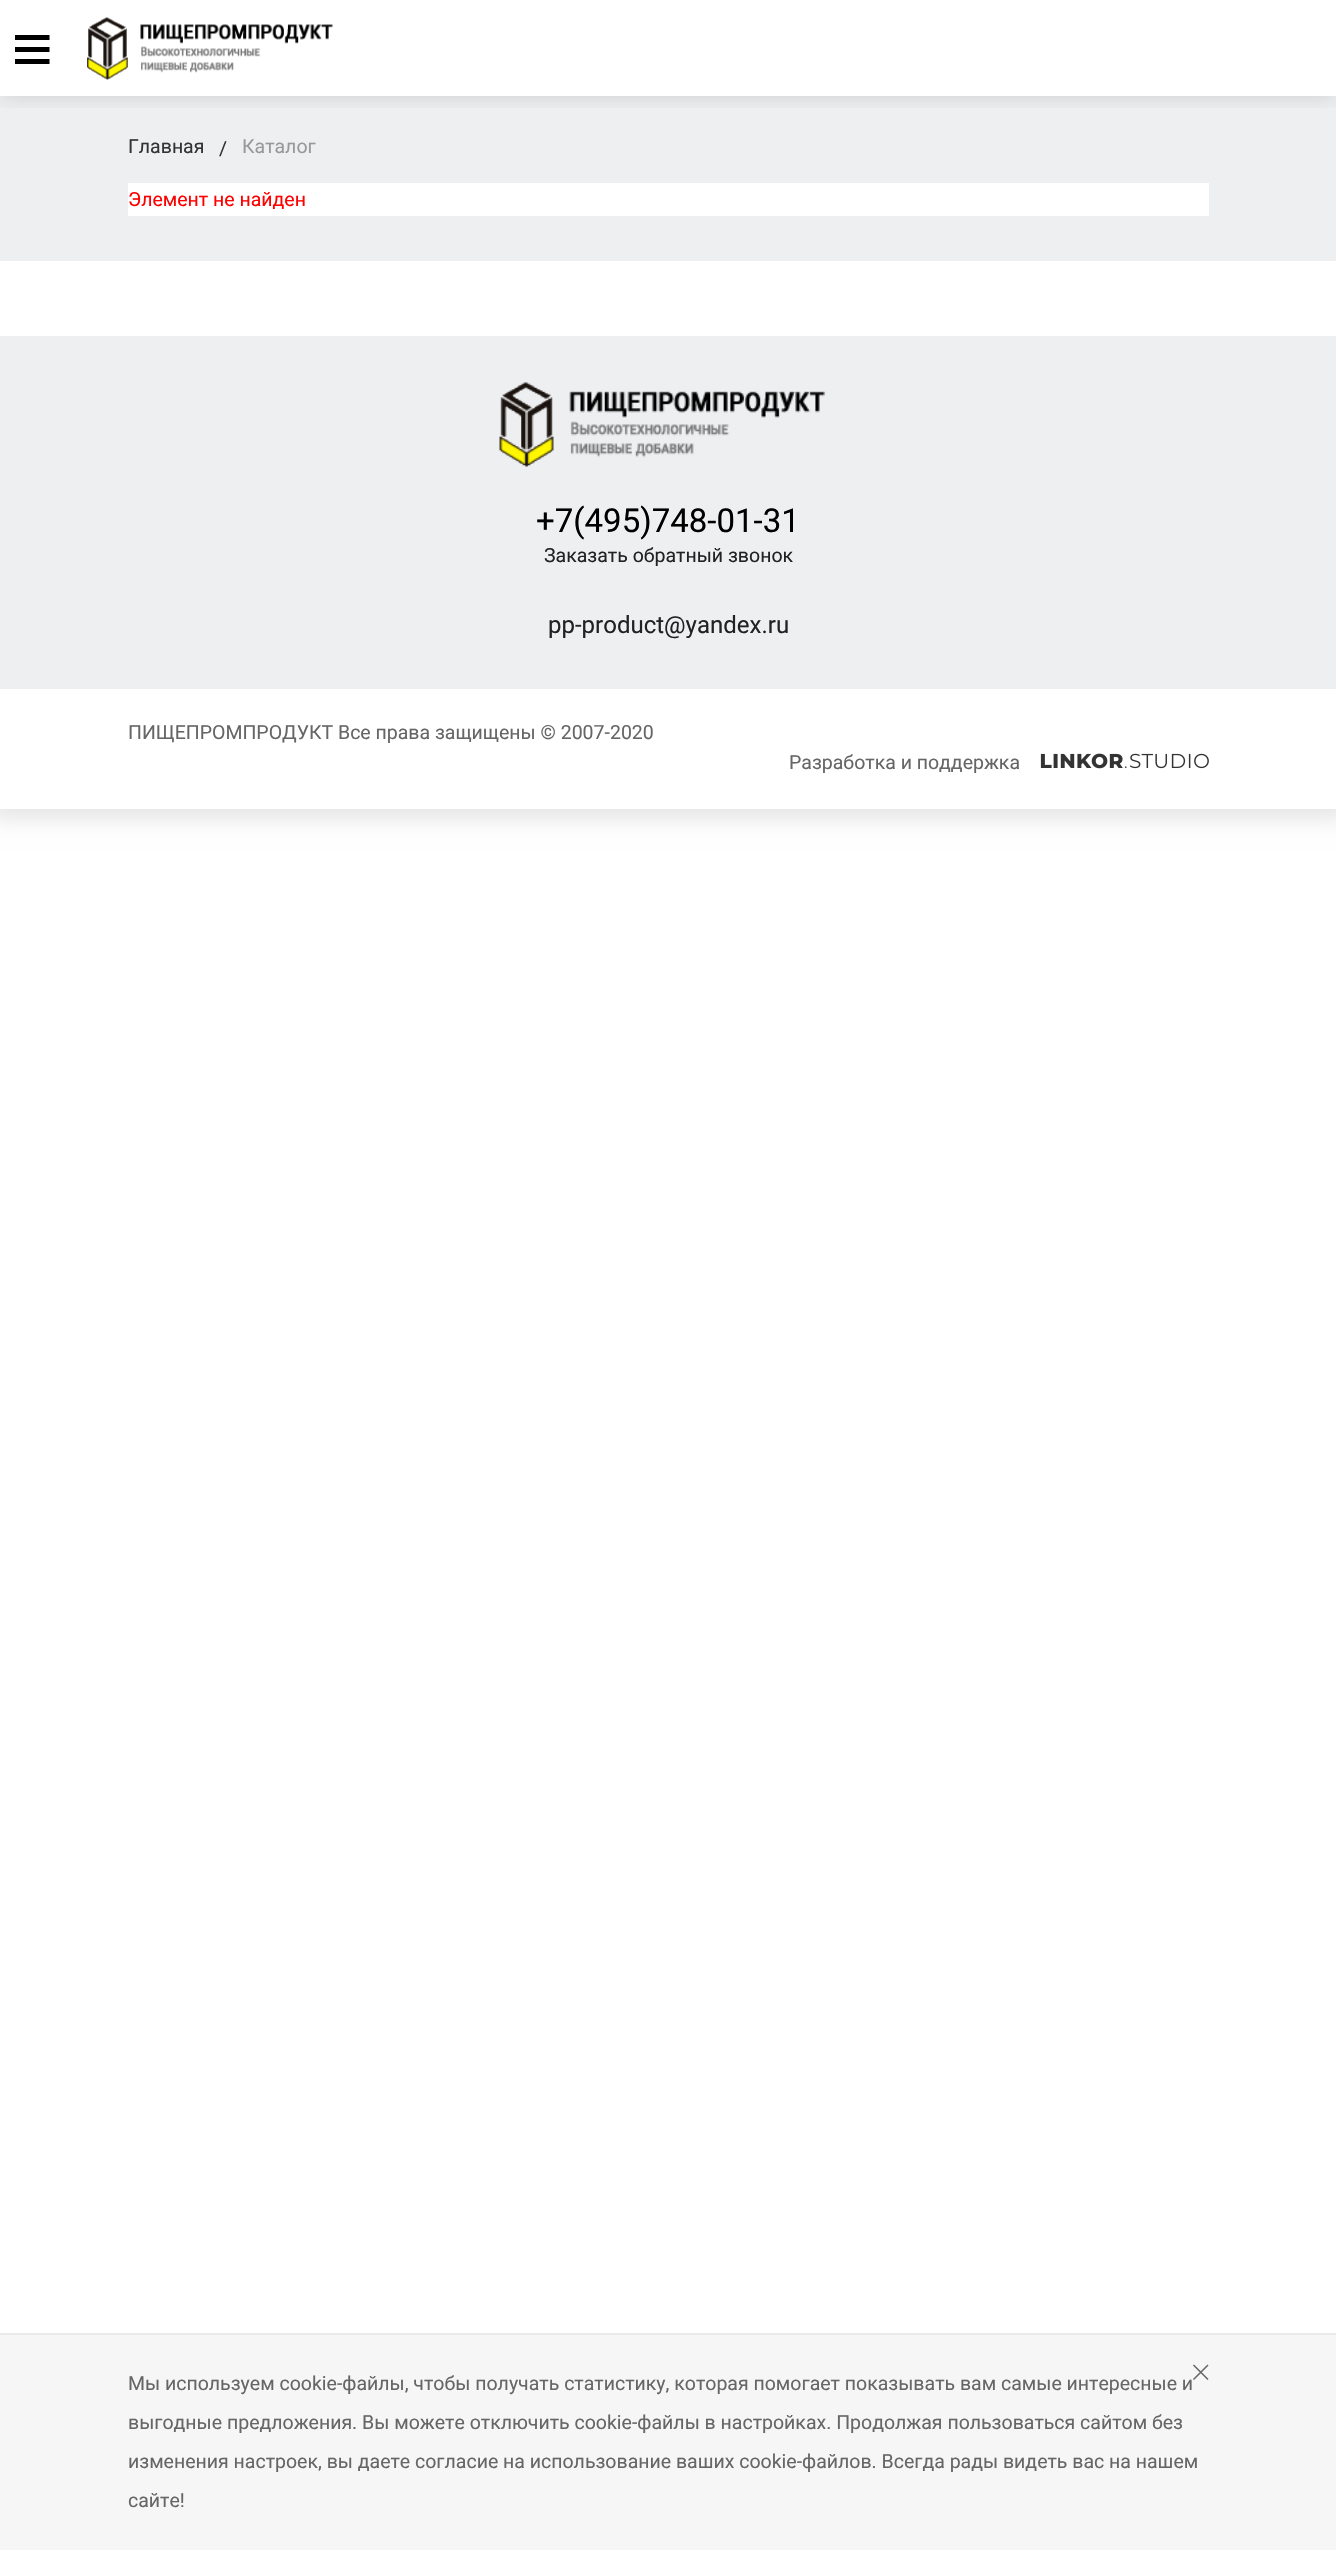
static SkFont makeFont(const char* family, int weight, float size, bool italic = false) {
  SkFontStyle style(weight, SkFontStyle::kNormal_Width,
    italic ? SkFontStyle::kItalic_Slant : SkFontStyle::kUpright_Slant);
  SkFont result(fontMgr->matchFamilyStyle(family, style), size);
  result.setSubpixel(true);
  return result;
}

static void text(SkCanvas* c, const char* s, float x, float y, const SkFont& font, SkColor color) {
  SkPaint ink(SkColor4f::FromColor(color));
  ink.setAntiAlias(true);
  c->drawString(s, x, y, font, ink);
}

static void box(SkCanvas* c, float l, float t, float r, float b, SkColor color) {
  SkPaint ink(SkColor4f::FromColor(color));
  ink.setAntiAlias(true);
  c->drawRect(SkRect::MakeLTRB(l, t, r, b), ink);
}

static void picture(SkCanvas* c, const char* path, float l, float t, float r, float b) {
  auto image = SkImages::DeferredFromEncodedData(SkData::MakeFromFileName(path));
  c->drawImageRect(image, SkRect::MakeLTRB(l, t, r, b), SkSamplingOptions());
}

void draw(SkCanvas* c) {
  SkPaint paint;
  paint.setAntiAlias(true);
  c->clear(0xffffffff);
  paint.setColor(0x1a000000);
  paint.setMaskFilter(SkMaskFilter::MakeBlur(kNormal_SkBlurStyle, 10.5f));
  c->drawRect(SkRect::MakeLTRB(-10, -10, 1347, 819), paint);
  paint.setMaskFilter(nullptr);
  box(c, 0, 0, 1336, 809, 0xffffffff);
  box(c, 0, 96, 1336, 261, 0xffeeeff1);
  c->save();
  c->clipRect(SkRect::MakeLTRB(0, 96, 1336, 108));
  paint.setColor(0x26050505);
  paint.setMaskFilter(SkMaskFilter::MakeBlur(kNormal_SkBlurStyle, 11));
  c->drawRect(SkRect::MakeLTRB(0, 0, 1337, 96), paint);
  paint.setMaskFilter(nullptr);
  c->restore();
  paint.setColor(0xff000000);
  c->drawPath(SkPathBuilder(SkPathFillType::kEvenOdd).moveTo(15, 64).lineTo(15, 59).lineTo(49.5f, 59).lineTo(49.5f, 64).close().moveTo(15, 47).lineTo(49.5f, 47).lineTo(49.5f, 52).lineTo(15, 52).close().moveTo(15, 35).lineTo(49.5f, 35).lineTo(49.5f, 40).lineTo(15, 40).close().detach(), paint);
  picture(c, "img_01.png", 87, 17, 333, 80);
  SkFont face1 = makeFont("Roboto", 400, 19.5f);
  text(c, "Главная", 128, 153, face1, 0xff333333);
  text(c, "/", 219, 155, face1, 0xff333333);
  text(c, "Каталог", 242, 153, face1, 0xff999999);
  box(c, 128, 183, 1209, 216, 0xffffffff);
  text(c, "Элемент не найден", 128, 206, face1, 0xffff0000);
  box(c, 0, 336, 1336, 689, 0xffeeeff1);
  picture(c, "img_02.png", 499, 382, 826, 467);
  SkFont face2 = makeFont("Roboto", 400, 33);
  text(c, "+7(495)748-01-31", 536, 532, face2, 0xff000000);
  text(c, "Заказать обратный звонок", 544, 562, face1, 0xff222222);
  SkFont face3 = makeFont("Roboto", 400, 24);
  text(c, "pp-product@yandex.ru", 548, 633, face3, 0xff222222);
  text(c, "ПИЩЕПРОМПРОДУКТ Все права защищены © 2007-2020", 128, 739, face1, 0xff666666);
  text(c, "Разработка и поддержка", 789, 769, face1, 0xff666666);
  picture(c, "img_03.png", 1040, 753, 1209, 769);
  box(c, 0, 2335, 1336, 2550, 0xfff6f6f6);
  box(c, 0, 2333, 1336, 2335, 0xffe9e9e9);
  paint.setStyle(SkPaint::kStroke_Style);
  paint.setStrokeWidth(1.5f);
  paint.setStrokeCap(SkPaint::kSquare_Cap);
  paint.setColor(0xff666666);
  c->drawPath(SkPathBuilder().moveTo(1207.5f, 2379).lineTo(1194, 2365.5f).moveTo(1194, 2379).lineTo(1207.5f, 2365.5f).detach(), paint);
  text(c, "Мы используем cookie-файлы, чтобы получать статистику, которая помогает показывать вам самые интересные и", 128, 2390, face1, 0xff666666);
  text(c, "выгодные предложения. Вы можете отключить cookie-файлы в настройках. Продолжая пользоваться сайтом без", 128, 2429, face1, 0xff666666);
  text(c, "изменения настроек, вы даете согласие на использование ваших cookie-файлов. Всегда рады видеть вас на нашем", 128, 2468, face1, 0xff666666);
  text(c, "сайте!", 128, 2507, face1, 0xff666666);
}
